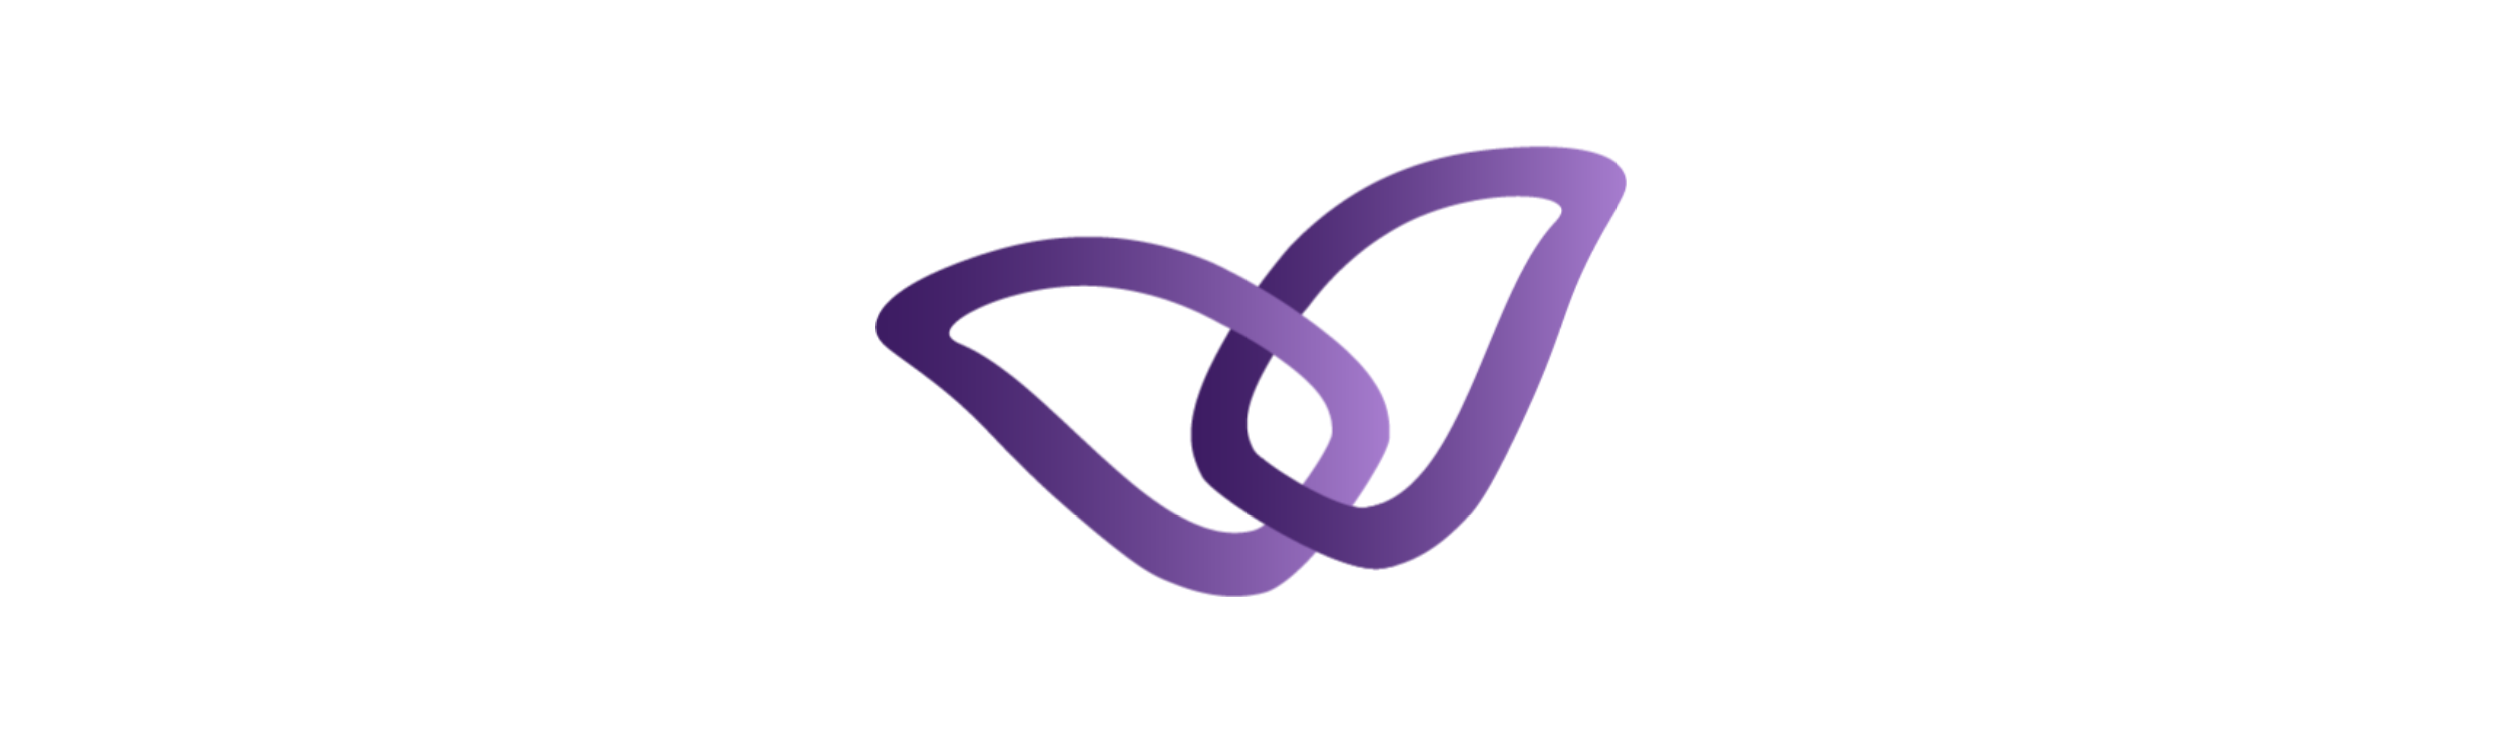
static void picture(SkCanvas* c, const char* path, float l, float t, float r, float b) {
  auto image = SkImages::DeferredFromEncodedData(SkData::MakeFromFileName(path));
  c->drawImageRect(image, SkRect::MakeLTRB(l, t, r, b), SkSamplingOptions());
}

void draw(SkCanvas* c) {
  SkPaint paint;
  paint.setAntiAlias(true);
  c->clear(0xffffffff);
  picture(c, "img_01.png", 875, 145, 1627, 597);
}
